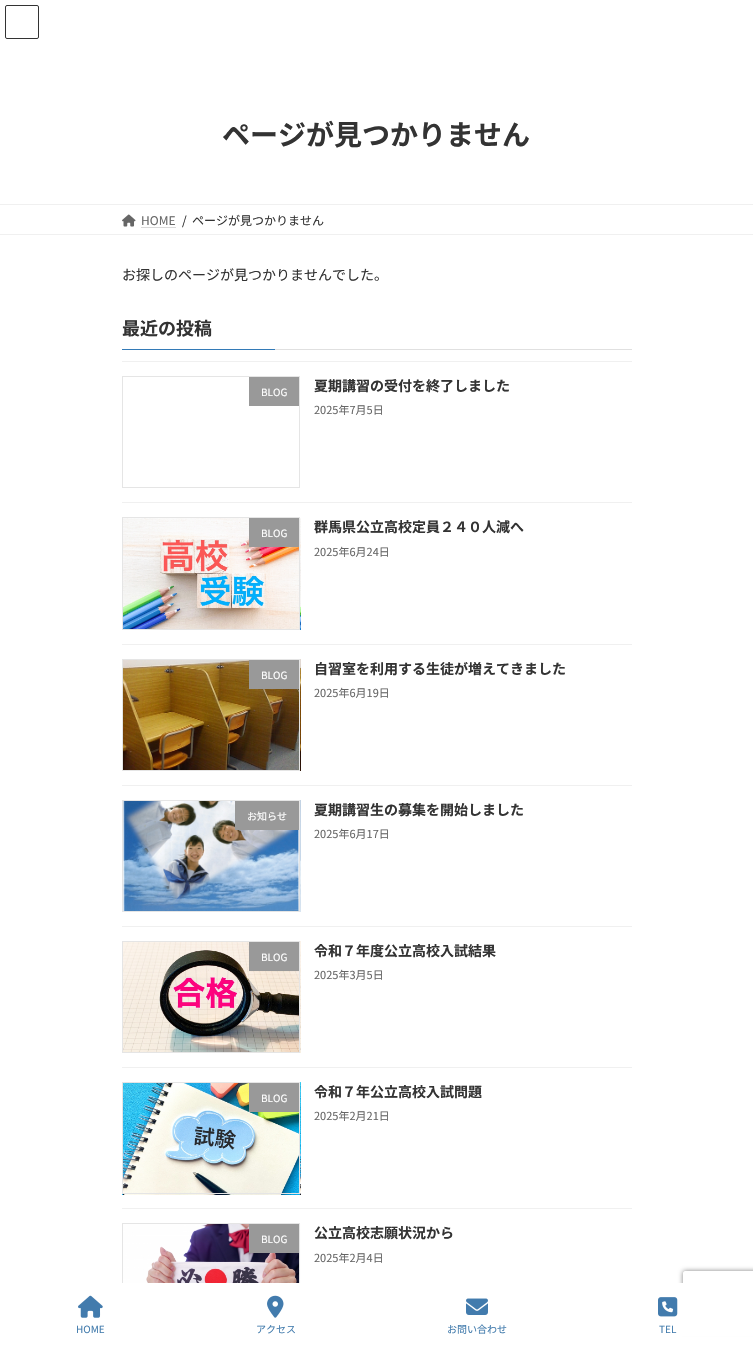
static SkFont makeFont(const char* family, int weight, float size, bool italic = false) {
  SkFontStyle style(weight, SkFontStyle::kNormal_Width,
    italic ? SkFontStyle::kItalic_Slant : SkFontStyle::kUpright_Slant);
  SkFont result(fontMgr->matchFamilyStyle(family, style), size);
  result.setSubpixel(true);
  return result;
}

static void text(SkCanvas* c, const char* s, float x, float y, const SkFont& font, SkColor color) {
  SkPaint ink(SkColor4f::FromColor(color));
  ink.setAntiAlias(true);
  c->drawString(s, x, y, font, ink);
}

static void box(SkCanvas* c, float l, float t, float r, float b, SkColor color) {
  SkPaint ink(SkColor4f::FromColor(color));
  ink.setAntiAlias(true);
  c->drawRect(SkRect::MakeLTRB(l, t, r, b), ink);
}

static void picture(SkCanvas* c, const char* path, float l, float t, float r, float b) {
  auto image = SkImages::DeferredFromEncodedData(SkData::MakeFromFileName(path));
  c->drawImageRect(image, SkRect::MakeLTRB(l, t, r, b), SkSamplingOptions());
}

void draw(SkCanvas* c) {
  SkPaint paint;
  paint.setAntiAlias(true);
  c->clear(0xffffffff);
  paint.setStyle(SkPaint::kStroke_Style);
  paint.setStrokeWidth(1);
  paint.setColor(0xff333333);
  c->drawRoundRect(SkRect::MakeLTRB(5.5f, 5.5f, 38.5f, 38.5f), 1.5f, 1.5f, paint);
  SkFont face1 = makeFont("Noto Sans JP", 700, 28);
  text(c, "ページが見つかりません", 222, 145, face1, 0xff333333);
  box(c, 0, 204, 753, 205, 0xfff0f0f0);
  box(c, 0, 234, 753, 235, 0xfff0f0f0);
  picture(c, "img_01.png", 122, 214, 136, 227);
  SkFont face2 = makeFont("Noto Sans JP", 400, 12);
  text(c, "HOME", 141, 225, face2, 0xff666666);
  paint.setColor(0xffb3b3b3);
  paint.setPathEffect(SkDashPathEffect::Make({{1, 1}}, 0));
  c->drawPath(SkPathBuilder().moveTo(141.5f, 227.5f).lineTo(176, 227.5f).detach(), paint);
  paint.setPathEffect(nullptr);
  text(c, "/", 182, 225, face2, 0xff333333);
  text(c, "ページが見つかりません", 192, 225, face2, 0xff333333);
  SkFont face3 = makeFont("Noto Sans JP", 400, 14);
  text(c, "お探しのページが見つかりませんでした。", 122, 280, face3, 0xff333333);
  box(c, 275, 349, 632, 350, 0xffe0e0e0);
  SkFont face4 = makeFont("Noto Sans JP", 700, 18);
  text(c, "最近の投稿", 122, 335, face4, 0xff333333);
  box(c, 122, 349, 275, 350, 0xff337ab7);
  box(c, 122, 361, 632, 362, 0xfff0f0f0);
  box(c, 122, 502, 632, 503, 0xfff0f0f0);
  paint.setColor(0xffe5e5e5);
  c->drawRect(SkRect::MakeLTRB(122.5f, 376.5f, 299.5f, 487.5f), paint);
  box(c, 249, 377, 299, 406, 0xff999999);
  SkFont face5 = makeFont("Noto Sans JP", 400, 10);
  text(c, "BLOG", 261, 396, face5, 0xffffffff);
  SkFont face6 = makeFont("Noto Sans JP", 700, 14);
  text(c, "夏期講習の受付を終了しました", 314, 391, face6, 0xff333333);
  SkFont face7 = makeFont("Noto Sans JP", 400, 11);
  text(c, "2025年7月5日", 314, 414, face7, 0xff666666);
  box(c, 122, 644, 632, 645, 0xfff0f0f0);
  picture(c, "img_02.png", 123, 518, 301, 630);
  c->drawRect(SkRect::MakeLTRB(122.5f, 517.5f, 299.5f, 629.5f), paint);
  box(c, 249, 518, 299, 547, 0xff999999);
  text(c, "BLOG", 261, 537, face5, 0xffffffff);
  text(c, "群馬県公立高校定員２４０人減へ", 314, 532, face6, 0xff333333);
  text(c, "2025年6月24日", 314, 556, face7, 0xff666666);
  box(c, 122, 785, 632, 786, 0xfff0f0f0);
  picture(c, "img_03.png", 123, 659, 301, 771);
  c->drawRect(SkRect::MakeLTRB(122.5f, 659.5f, 299.5f, 770.5f), paint);
  box(c, 249, 660, 299, 689, 0xff999999);
  text(c, "BLOG", 261, 679, face5, 0xffffffff);
  text(c, "自習室を利用する生徒が増えてきました", 314, 674, face6, 0xff333333);
  text(c, "2025年6月19日", 314, 697, face7, 0xff666666);
  box(c, 122, 926, 632, 927, 0xfff0f0f0);
  picture(c, "img_04.png", 123, 800, 301, 912);
  c->drawRect(SkRect::MakeLTRB(122.5f, 800.5f, 299.5f, 911.5f), paint);
  box(c, 235, 801, 299, 830, 0xff999999);
  text(c, "お知らせ", 247, 820, face5, 0xffffffff);
  text(c, "夏期講習生の募集を開始しました", 314, 815, face6, 0xff333333);
  text(c, "2025年6月17日", 314, 838, face7, 0xff666666);
  box(c, 122, 1067, 632, 1068, 0xfff0f0f0);
  picture(c, "img_05.png", 123, 941, 301, 1053);
  c->drawRect(SkRect::MakeLTRB(122.5f, 941.5f, 299.5f, 1052.5f), paint);
  box(c, 249, 942, 299, 971, 0xff999999);
  text(c, "BLOG", 261, 961, face5, 0xffffffff);
  text(c, "令和７年度公立高校入試結果", 314, 956, face6, 0xff333333);
  text(c, "2025年3月5日", 314, 979, face7, 0xff666666);
  box(c, 122, 1208, 632, 1209, 0xfff0f0f0);
  picture(c, "img_06.png", 122, 1082, 301, 1195);
  c->drawRect(SkRect::MakeLTRB(122.5f, 1082.5f, 299.5f, 1193.5f), paint);
  box(c, 249, 1083, 299, 1112, 0xff999999);
  text(c, "BLOG", 261, 1102, face5, 0xffffffff);
  text(c, "令和７年公立高校入試問題", 314, 1097, face6, 0xff333333);
  text(c, "2025年2月21日", 314, 1120, face7, 0xff666666);
  picture(c, "img_07.png", 123, 1224, 301, 1283);
  c->drawRect(SkRect::MakeLTRB(122.5f, 1223.5f, 299.5f, 1335.5f), paint);
  box(c, 249, 1224, 299, 1253, 0xff999999);
  text(c, "BLOG", 261, 1243, face5, 0xffffffff);
  text(c, "公立高校志願状況から", 314, 1238, face6, 0xff333333);
  text(c, "2025年2月4日", 314, 1262, face7, 0xff666666);
  c->save();
  c->clipPath(SkPathBuilder(SkPathFillType::kEvenOdd).moveTo(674, 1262).lineTo(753, 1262).lineTo(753, 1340).lineTo(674, 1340).close().moveTo(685, 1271).lineTo(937, 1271).cubicTo(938, 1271, 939, 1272, 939, 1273).lineTo(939, 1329).cubicTo(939, 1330, 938, 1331, 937, 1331).lineTo(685, 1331).cubicTo(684, 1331, 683, 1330, 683, 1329).lineTo(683, 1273).cubicTo(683, 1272, 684, 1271, 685, 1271).close().detach(), true);
  paint.setStyle(SkPaint::kFill_Style);
  paint.setColor(0xff808080);
  paint.setMaskFilter(SkMaskFilter::MakeBlur(kNormal_SkBlurStyle, 2.5f));
  c->drawRoundRect(SkRect::MakeLTRB(683, 1271, 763, 1331), 2, 2, paint);
  paint.setMaskFilter(nullptr);
  c->restore();
  box(c, 122, 1283, 753, 1336, 0xffffffff);
  picture(c, "img_08.png", 78, 1295, 103, 1318);
  text(c, "HOME", 76, 1333, face5, 0xff437cad);
  picture(c, "img_09.png", 267, 1295, 284, 1318);
  text(c, "アクセス", 256, 1333, face5, 0xff437cad);
  picture(c, "img_10.png", 466, 1298, 488, 1315);
  text(c, "お問い合わせ", 447, 1333, face5, 0xff437cad);
  picture(c, "img_11.png", 658, 1297, 678, 1317);
  text(c, "TEL", 659, 1333, face5, 0xff437cad);
}
